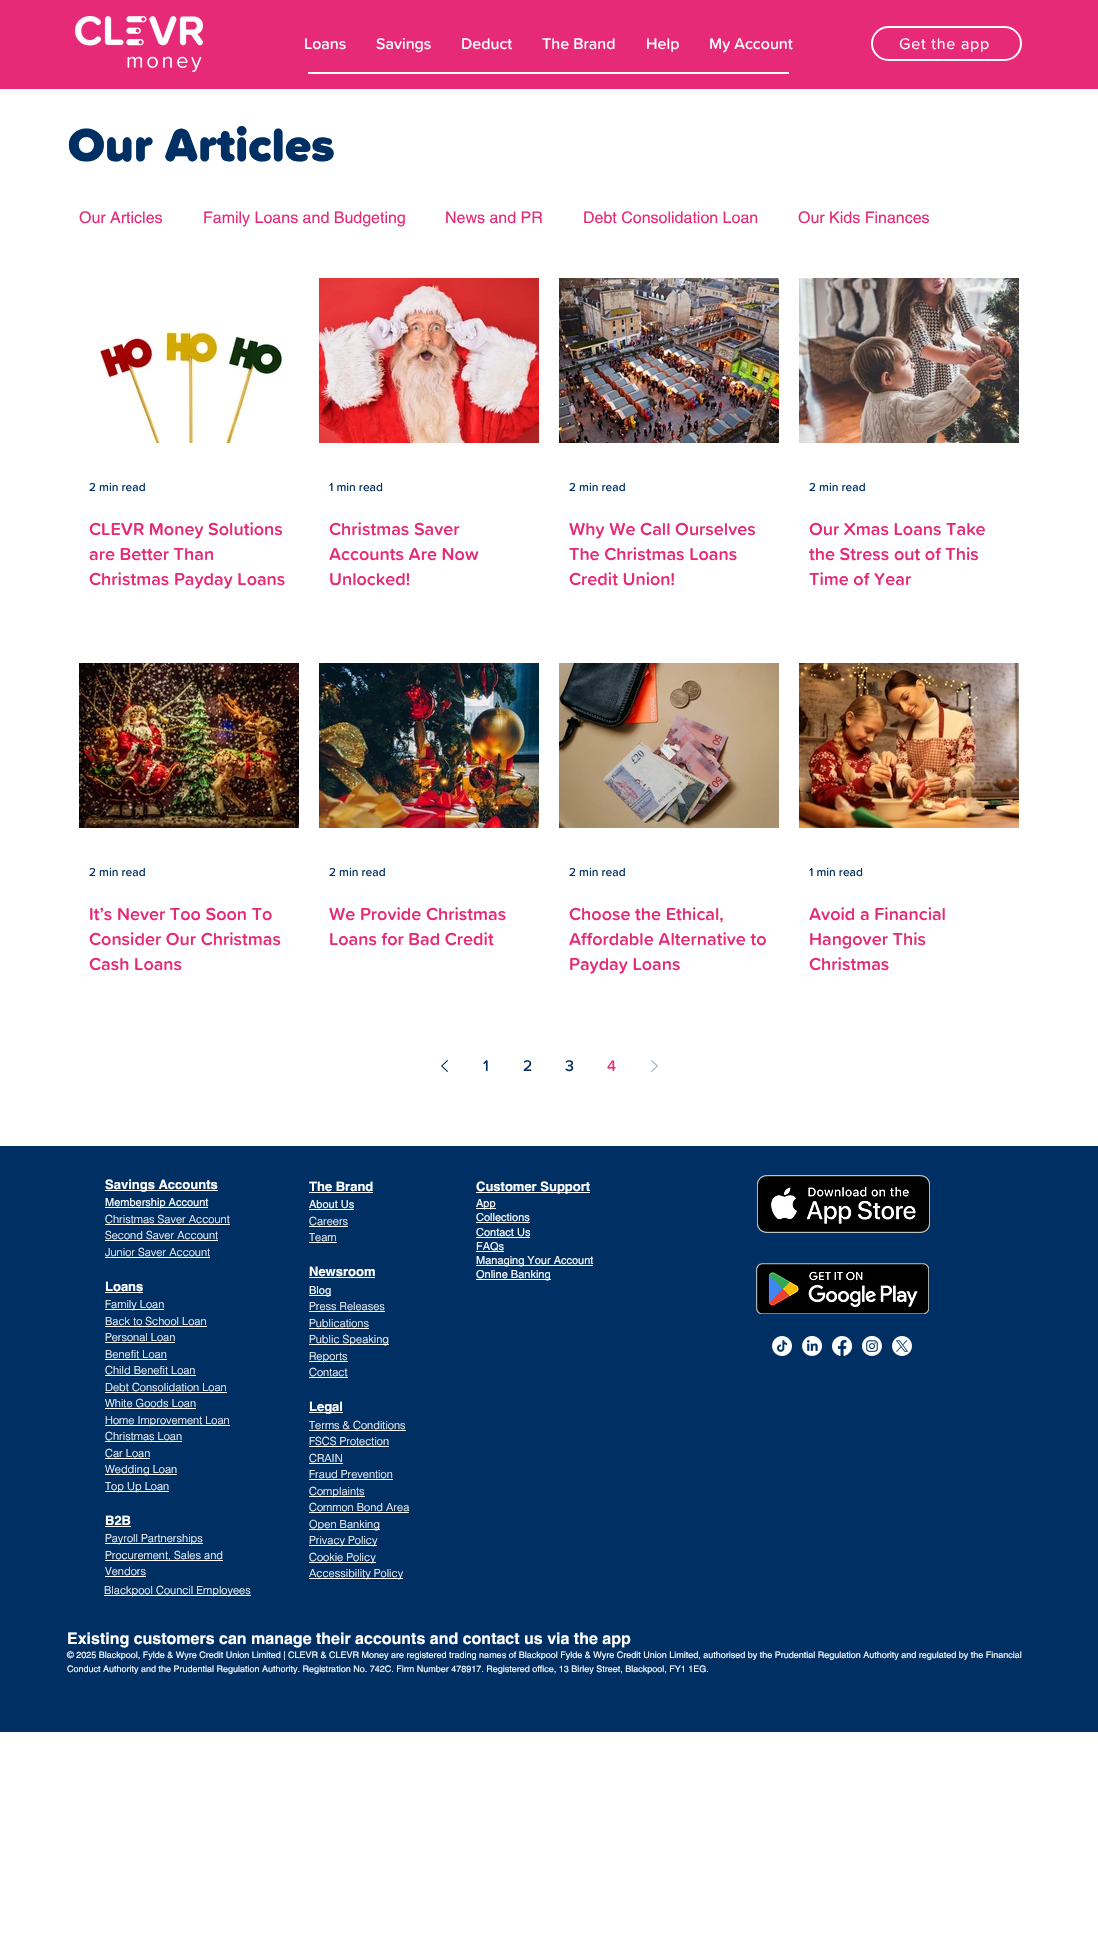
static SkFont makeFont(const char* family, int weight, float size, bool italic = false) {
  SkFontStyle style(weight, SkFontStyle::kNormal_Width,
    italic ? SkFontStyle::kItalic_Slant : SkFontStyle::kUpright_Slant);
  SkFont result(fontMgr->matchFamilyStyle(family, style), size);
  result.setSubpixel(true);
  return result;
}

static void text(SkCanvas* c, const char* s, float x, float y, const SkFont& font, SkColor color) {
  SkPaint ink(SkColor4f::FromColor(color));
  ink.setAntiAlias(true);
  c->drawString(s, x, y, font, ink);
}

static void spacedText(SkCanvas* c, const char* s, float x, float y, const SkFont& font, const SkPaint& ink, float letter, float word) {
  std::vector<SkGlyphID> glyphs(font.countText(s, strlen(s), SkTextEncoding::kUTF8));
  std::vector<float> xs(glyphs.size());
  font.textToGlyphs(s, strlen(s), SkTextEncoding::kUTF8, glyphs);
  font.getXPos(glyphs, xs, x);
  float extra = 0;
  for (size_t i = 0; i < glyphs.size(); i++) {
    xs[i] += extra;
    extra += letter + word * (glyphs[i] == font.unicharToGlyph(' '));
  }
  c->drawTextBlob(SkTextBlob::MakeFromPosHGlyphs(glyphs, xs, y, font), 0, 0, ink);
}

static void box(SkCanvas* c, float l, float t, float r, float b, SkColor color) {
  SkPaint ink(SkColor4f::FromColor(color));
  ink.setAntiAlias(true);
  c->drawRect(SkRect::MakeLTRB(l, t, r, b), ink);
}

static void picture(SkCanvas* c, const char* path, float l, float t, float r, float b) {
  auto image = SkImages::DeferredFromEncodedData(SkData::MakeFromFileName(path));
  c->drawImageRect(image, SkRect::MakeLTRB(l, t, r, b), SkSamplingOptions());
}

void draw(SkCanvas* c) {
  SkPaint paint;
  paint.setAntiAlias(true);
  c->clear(0xffffffff);
  box(c, 0, 0, 1098, 89, 0xffe62a77);
  picture(c, "img_01.png", 75, 16, 203, 72);
  SkFont face1 = makeFont("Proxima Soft", 500, 16);
  text(c, "Loans", 304, 49, face1, 0xffffffff);
  text(c, "Savings", 376, 49, face1, 0xffffffff);
  text(c, "Deduct", 461, 49, face1, 0xffffffff);
  text(c, "The Brand", 542, 49, face1, 0xffffffff);
  text(c, "Help", 646, 49, face1, 0xffffffff);
  text(c, "My Account", 709, 49, face1, 0xffffffff);
  paint.setStyle(SkPaint::kStroke_Style);
  paint.setStrokeWidth(2);
  paint.setColor(0xffffffff);
  c->drawRoundRect(SkRect::MakeLTRB(872, 27, 1021, 60), 16.5f, 16.5f, paint);
  SkFont face2 = makeFont("Proxima Soft", 400, 16);
  paint.setStyle(SkPaint::kFill_Style);
  spacedText(c, "Get the app", 899, 49, face2, paint, 0.75f, 0);
  box(c, 308, 72, 789, 74, 0xffffffff);
  SkFont face3 = makeFont("Proxima Soft", 900, 48);
  text(c, "Our Articles", 68, 161, face3, 0xff002f63);
  SkFont face4 = makeFont("helvetica", 400, 16);
  text(c, "Our Articles", 79, 223, face4, 0xffe62a77);
  text(c, "Family Loans and Budgeting", 203, 223, face4, 0xffe62a77);
  text(c, "News and PR", 445, 223, face4, 0xffe62a77);
  text(c, "Debt Consolidation Loan", 583, 223, face4, 0xffe62a77);
  text(c, "Our Kids Finances", 798, 223, face4, 0xffe62a77);
  picture(c, "img_02.png", 79, 303, 299, 443);
  SkFont face5 = makeFont("Proxima Soft", 500, 12);
  text(c, "2 min read", 89, 491, face5, 0xff002f63);
  SkFont face6 = makeFont("Proxima Soft", 600, 18);
  text(c, "CLEVR Money Solutions", 89, 535, face6, 0xffe62a77);
  text(c, "are Better Than", 89, 560, face6, 0xffe62a77);
  text(c, "Christmas Payday Loans", 89, 585, face6, 0xffe62a77);
  picture(c, "img_03.png", 319, 278, 539, 443);
  text(c, "1 min read", 329, 491, face5, 0xff002f63);
  text(c, "Christmas Saver", 329, 535, face6, 0xffe62a77);
  text(c, "Accounts Are Now", 329, 560, face6, 0xffe62a77);
  text(c, "Unlocked!", 329, 585, face6, 0xffe62a77);
  picture(c, "img_04.png", 559, 278, 779, 443);
  text(c, "2 min read", 569, 491, face5, 0xff002f63);
  text(c, "Why We Call Ourselves", 569, 535, face6, 0xffe62a77);
  text(c, "The Christmas Loans", 569, 560, face6, 0xffe62a77);
  text(c, "Credit Union!", 569, 585, face6, 0xffe62a77);
  picture(c, "img_05.png", 799, 278, 1019, 443);
  text(c, "2 min read", 809, 491, face5, 0xff002f63);
  text(c, "Our Xmas Loans Take", 809, 535, face6, 0xffe62a77);
  text(c, "the Stress out of This", 809, 560, face6, 0xffe62a77);
  text(c, "Time of Year", 809, 585, face6, 0xffe62a77);
  picture(c, "img_06.png", 79, 663, 299, 828);
  text(c, "2 min read", 89, 876, face5, 0xff002f63);
  text(c, "It’s Never Too Soon To", 89, 920, face6, 0xffe62a77);
  text(c, "Consider Our Christmas", 89, 945, face6, 0xffe62a77);
  text(c, "Cash Loans", 89, 970, face6, 0xffe62a77);
  picture(c, "img_07.png", 319, 663, 539, 828);
  text(c, "2 min read", 329, 876, face5, 0xff002f63);
  text(c, "We Provide Christmas", 329, 920, face6, 0xffe62a77);
  text(c, "Loans for Bad Credit", 329, 945, face6, 0xffe62a77);
  picture(c, "img_08.png", 559, 663, 779, 828);
  text(c, "2 min read", 569, 876, face5, 0xff002f63);
  text(c, "Choose the Ethical,", 569, 920, face6, 0xffe62a77);
  text(c, "Affordable Alternative to", 569, 945, face6, 0xffe62a77);
  text(c, "Payday Loans", 569, 970, face6, 0xffe62a77);
  picture(c, "img_09.png", 799, 663, 1019, 828);
  text(c, "1 min read", 809, 876, face5, 0xff002f63);
  text(c, "Avoid a Financial", 809, 920, face6, 0xffe62a77);
  text(c, "Hangover This", 809, 945, face6, 0xffe62a77);
  text(c, "Christmas", 809, 970, face6, 0xffe62a77);
  picture(c, "img_10.png", 441, 1060, 448, 1072);
  text(c, "1", 483, 1071, face1, 0xff002f63);
  text(c, "2", 523, 1071, face1, 0xff002f63);
  text(c, "3", 565, 1071, face1, 0xff002f63);
  text(c, "4", 607, 1071, face1, 0xffe62a77);
  picture(c, "img_11.png", 651, 1060, 658, 1072);
  box(c, 0, 1146, 1098, 1732, 0xff002f63);
  box(c, 105, 1190, 218, 1191, 0xffffffff);
  SkFont face7 = makeFont("helvetica", 700, 13);
  text(c, "Savings Accounts", 105, 1189, face7, 0xffffffff);
  box(c, 105, 1207, 208, 1208, 0xffffffff);
  SkFont face8 = makeFont("helvetica", 400, 11);
  text(c, "Membership Account", 105, 1206, face8, 0xffffffff);
  SkFont face9 = makeFont("helvetica", 300, 11);
  text(c, "Christmas Saver Account", 105, 1223, face9, 0xffffffff);
  box(c, 105, 1224, 230, 1225, 0xffffffff);
  text(c, "Second Saver Account", 105, 1239, face9, 0xffffffff);
  box(c, 105, 1240, 218, 1241, 0xffffffff);
  text(c, "Junior Saver Account", 105, 1256, face9, 0xffffffff);
  box(c, 105, 1257, 210, 1258, 0xffffffff);
  text(c, "Loans", 105, 1291, face7, 0xffffffff);
  box(c, 105, 1292, 143, 1293, 0xffffffff);
  box(c, 105, 1309, 164, 1310, 0xffffffff);
  text(c, "Family Loan", 105, 1308, face9, 0xffffffff);
  text(c, "Back to School Loan", 105, 1325, face9, 0xffffffff);
  box(c, 105, 1326, 207, 1327, 0xffffffff);
  text(c, "Personal Loan", 105, 1341, face9, 0xffffffff);
  box(c, 105, 1342, 175, 1343, 0xffffffff);
  text(c, "Benefit Loan", 105, 1358, face9, 0xffffffff);
  box(c, 105, 1359, 167, 1360, 0xffffffff);
  text(c, "Child Benefit Loan", 105, 1374, face9, 0xffffffff);
  box(c, 105, 1375, 196, 1376, 0xffffffff);
  text(c, "Debt Consolidation Loan", 105, 1391, face9, 0xffffffff);
  box(c, 105, 1392, 227, 1393, 0xffffffff);
  text(c, "White Goods Loan", 105, 1407, face9, 0xffffffff);
  box(c, 105, 1408, 196, 1409, 0xffffffff);
  box(c, 105, 1425, 230, 1426, 0xffffffff);
  text(c, "Home Improvement Loan", 105, 1424, face9, 0xffffffff);
  text(c, "Christmas Loan", 105, 1440, face9, 0xffffffff);
  box(c, 105, 1441, 182, 1442, 0xffffffff);
  text(c, "Car Loan", 105, 1457, face9, 0xffffffff);
  box(c, 105, 1458, 150, 1459, 0xffffffff);
  box(c, 105, 1474, 177, 1475, 0xffffffff);
  text(c, "Wedding Loan", 105, 1473, face9, 0xffffffff);
  box(c, 105, 1491, 169, 1492, 0xffffffff);
  text(c, "Top Up Loan", 105, 1490, face9, 0xffffffff);
  text(c, "B2B", 105, 1525, face7, 0xffffffff);
  box(c, 105, 1526, 131, 1527, 0xffffffff);
  box(c, 105, 1543, 203, 1544, 0xffffffff);
  text(c, "Payroll Partnerships", 105, 1542, face9, 0xffffffff);
  box(c, 105, 1560, 223, 1561, 0xffffffff);
  text(c, "Procurement, Sales and", 105, 1559, face9, 0xffffffff);
  text(c, "Vendors", 105, 1575, face9, 0xffffffff);
  box(c, 105, 1576, 146, 1577, 0xffffffff);
  text(c, "The Brand", 309, 1191, face7, 0xffffffff);
  box(c, 309, 1192, 373, 1193, 0xffffffff);
  text(c, "About Us", 309, 1208, face8, 0xffffffff);
  box(c, 309, 1209, 354, 1210, 0xffffffff);
  text(c, "Careers", 309, 1225, face9, 0xffffffff);
  box(c, 309, 1226, 348, 1227, 0xffffffff);
  text(c, "Team", 309, 1241, face9, 0xffffffff);
  box(c, 309, 1242, 337, 1243, 0xffffffff);
  text(c, "Newsroom", 309, 1276, face7, 0xffffffff);
  box(c, 309, 1277, 375, 1278, 0xffffffff);
  box(c, 309, 1295, 331, 1296, 0xffffffff);
  text(c, "Blog", 309, 1294, face8, 0xffffffff);
  text(c, "Press Releases", 309, 1310, face9, 0xffffffff);
  box(c, 309, 1311, 385, 1312, 0xffffffff);
  text(c, "Publications", 309, 1327, face9, 0xffffffff);
  box(c, 309, 1328, 369, 1329, 0xffffffff);
  box(c, 309, 1344, 389, 1345, 0xffffffff);
  text(c, "Public Speaking", 309, 1343, face9, 0xffffffff);
  box(c, 309, 1361, 348, 1362, 0xffffffff);
  text(c, "Reports", 309, 1360, face9, 0xffffffff);
  text(c, "Contact", 309, 1376, face9, 0xffffffff);
  box(c, 309, 1377, 348, 1378, 0xffffffff);
  box(c, 309, 1412, 343, 1413, 0xffffffff);
  text(c, "Legal", 309, 1411, face7, 0xffffffff);
  text(c, "Terms & Conditions", 309, 1429, face9, 0xffffffff);
  box(c, 309, 1430, 406, 1431, 0xffffffff);
  text(c, "FSCS Protection", 309, 1445, face9, 0xffffffff);
  box(c, 309, 1446, 389, 1447, 0xffffffff);
  text(c, "CRAIN", 309, 1462, face9, 0xffffffff);
  box(c, 309, 1463, 343, 1464, 0xffffffff);
  text(c, "Fraud Prevention", 309, 1478, face9, 0xffffffff);
  box(c, 309, 1479, 393, 1480, 0xffffffff);
  box(c, 309, 1496, 365, 1497, 0xffffffff);
  text(c, "Complaints", 309, 1495, face9, 0xffffffff);
  text(c, "Common Bond Area", 309, 1511, face9, 0xffffffff);
  box(c, 309, 1512, 409, 1513, 0xffffffff);
  box(c, 309, 1529, 380, 1530, 0xffffffff);
  text(c, "Open Banking", 309, 1528, face9, 0xffffffff);
  box(c, 309, 1545, 377, 1546, 0xffffffff);
  text(c, "Privacy Policy", 309, 1544, face9, 0xffffffff);
  box(c, 309, 1562, 376, 1563, 0xffffffff);
  text(c, "Cookie Policy", 309, 1561, face9, 0xffffffff);
  box(c, 309, 1578, 403, 1579, 0xffffffff);
  text(c, "Accessibility Policy", 309, 1577, face9, 0xffffffff);
  box(c, 476, 1192, 590, 1193, 0xffffffff);
  text(c, "Customer Support", 476, 1191, face7, 0xffffffff);
  box(c, 476, 1208, 496, 1209, 0xffffffff);
  text(c, "App", 476, 1207, face8, 0xffffffff);
  text(c, "Collections", 476, 1221, face8, 0xffffffff);
  box(c, 476, 1222, 530, 1223, 0xffffffff);
  text(c, "Contact Us", 476, 1236, face8, 0xffffffff);
  box(c, 476, 1237, 530, 1238, 0xffffffff);
  text(c, "FAQs", 476, 1250, face8, 0xffffffff);
  box(c, 476, 1251, 504, 1252, 0xffffffff);
  box(c, 476, 1265, 593, 1266, 0xffffffff);
  text(c, "Managing Your Account", 476, 1264, face8, 0xffffffff);
  box(c, 476, 1279, 551, 1280, 0xffffffff);
  text(c, "Online Banking", 476, 1278, face8, 0xffffffff);
  picture(c, "img_12.png", 757, 1175, 930, 1233);
  picture(c, "img_13.png", 756, 1263, 929, 1314);
  picture(c, "img_14.png", 772, 1336, 792, 1356);
  picture(c, "img_15.png", 802, 1336, 822, 1356);
  picture(c, "img_16.png", 832, 1336, 852, 1356);
  picture(c, "img_17.png", 862, 1336, 882, 1356);
  picture(c, "img_18.png", 892, 1336, 912, 1356);
  box(c, 104, 1595, 251, 1596, 0xffffffff);
  text(c, "Blackpool Council Employees", 104, 1594, face9, 0xffffffff);
  SkFont face10 = makeFont("helvetica", 700, 16);
  text(c, "Existing customers can manage their accounts and contact us via the app", 67, 1644, face10, 0xffffffff);
  SkFont face11 = makeFont("helvetica", 400, 9);
  text(c, "© 2025 Blackpool, Fylde & Wyre Credit Union Limited | CLEVR & CLEVR Money are registered trading names of Blackpool Fylde & Wyre Credit Union Limited, authorised by the Prudential Regulation Authority and regulated by the Financial", 67, 1658, face11, 0xffffffff);
  text(c, "Conduct Authority and the Prudential Regulation Authority. Registration No. 742C. Firm Number 478917. Registered office, 13 Birley Street, Blackpool, FY1 1EG.", 67, 1672, face11, 0xffffffff);
}
